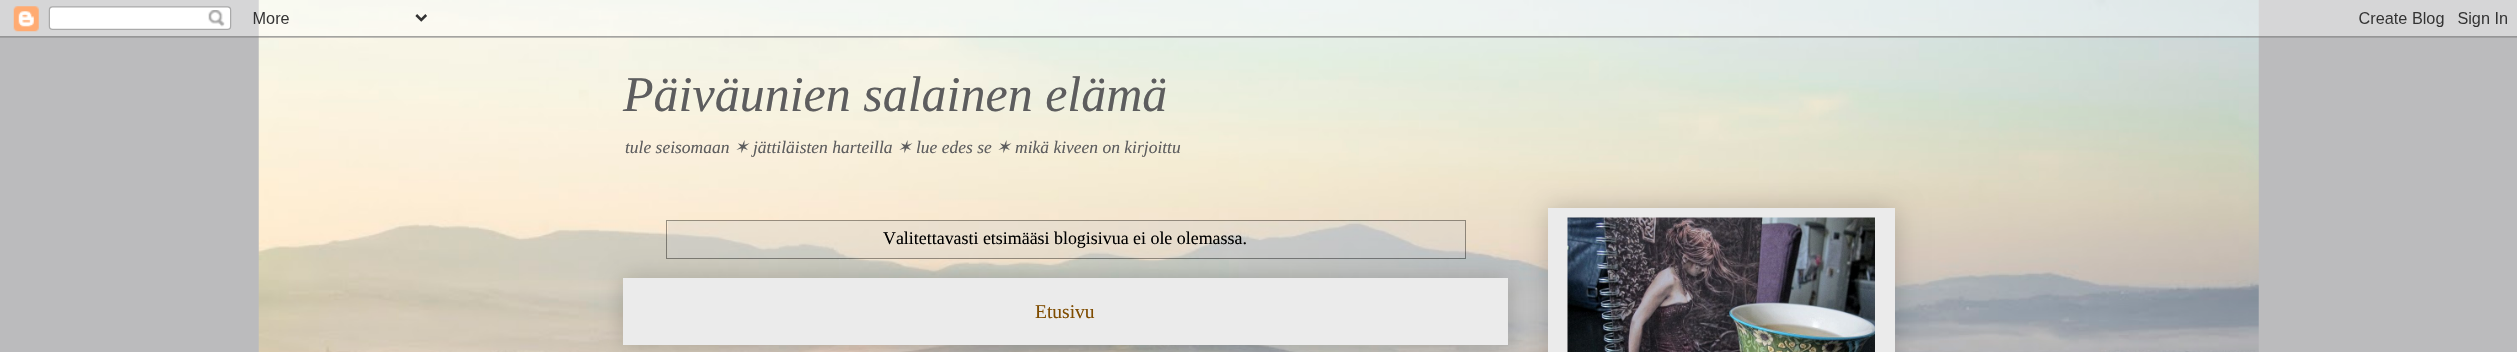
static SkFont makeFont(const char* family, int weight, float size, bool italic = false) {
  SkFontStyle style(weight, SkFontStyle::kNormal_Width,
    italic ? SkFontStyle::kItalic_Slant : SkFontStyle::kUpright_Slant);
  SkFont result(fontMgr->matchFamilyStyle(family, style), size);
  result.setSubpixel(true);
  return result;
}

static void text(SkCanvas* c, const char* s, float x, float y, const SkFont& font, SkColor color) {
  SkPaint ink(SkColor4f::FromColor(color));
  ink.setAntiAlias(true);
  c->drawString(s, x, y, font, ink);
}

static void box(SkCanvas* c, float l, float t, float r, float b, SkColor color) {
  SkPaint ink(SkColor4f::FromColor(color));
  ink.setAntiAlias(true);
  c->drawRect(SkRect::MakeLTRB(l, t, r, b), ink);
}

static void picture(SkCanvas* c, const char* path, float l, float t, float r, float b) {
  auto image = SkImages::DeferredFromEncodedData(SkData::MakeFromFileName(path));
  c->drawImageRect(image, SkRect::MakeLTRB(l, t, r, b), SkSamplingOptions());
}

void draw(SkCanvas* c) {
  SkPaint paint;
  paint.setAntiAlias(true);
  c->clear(0xffbbbbbd);
  picture(c, "img_01.png", 258, 0, 2259, 352);
  picture(c, "img_02.png", 0, 0, 2517, 38);
  SkFont face1 = makeFont("Liberation Serif", 400, 50, true);
  text(c, "Päiväunien salainen elämä", 623, 111, face1, 0xff5d5d5e);
  SkFont face2 = makeFont("Liberation Serif", 400, 17.5f, true);
  text(c, "tule seisomaan", 625, 153, face2, 0xff5d5d5e);
  SkFont face3 = makeFont("DejaVu Sans", 400, 17.5f, true);
  text(c, "✶", 734, 153, face3, 0xff5d5d5e);
  text(c, "jättiläisten harteilla", 753, 153, face2, 0xff5d5d5e);
  text(c, "✶", 897, 153, face3, 0xff5d5d5e);
  text(c, "lue edes se", 916, 153, face2, 0xff5d5d5e);
  text(c, "✶", 996, 153, face3, 0xff5d5d5e);
  text(c, "mikä kiveen on kirjoittu", 1015, 153, face2, 0xff5d5d5e);
  paint.setColor(0x33000000);
  paint.setMaskFilter(SkMaskFilter::MakeBlur(kNormal_SkBlurStyle, 12.5f));
  c->drawRect(SkRect::MakeLTRB(623, 278, 1508, 345), paint);
  paint.setMaskFilter(nullptr);
  paint.setStyle(SkPaint::kStroke_Style);
  paint.setStrokeWidth(1);
  paint.setColor(0x66000000);
  c->drawRect(SkRect::MakeLTRB(666.5f, 220.5f, 1465.5f, 258.5f), paint);
  box(c, 668, 221, 1465, 258, 0x52cccccc);
  SkFont face4 = makeFont("Liberation Serif", 400, 17.9f);
  text(c, "Valitettavasti etsimääsi blogisivua ei ole olemassa.", 883, 244, face4, 0xff000000);
  box(c, 623, 278, 1508, 345, 0xffebebeb);
  SkFont face5 = makeFont("Liberation Serif", 400, 19.5f);
  text(c, "Etusivu", 1035, 318, face5, 0xff7f4c00);
  paint.setStyle(SkPaint::kFill_Style);
  paint.setColor(0x33000000);
  paint.setMaskFilter(SkMaskFilter::MakeBlur(kNormal_SkBlurStyle, 12.5f));
  c->drawRect(SkRect::MakeLTRB(1548, 208, 1895, 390), paint);
  paint.setMaskFilter(nullptr);
  box(c, 1548, 208, 1895, 352, 0xffebebeb);
  picture(c, "img_03.png", 1567, 217, 1875, 352);
}
